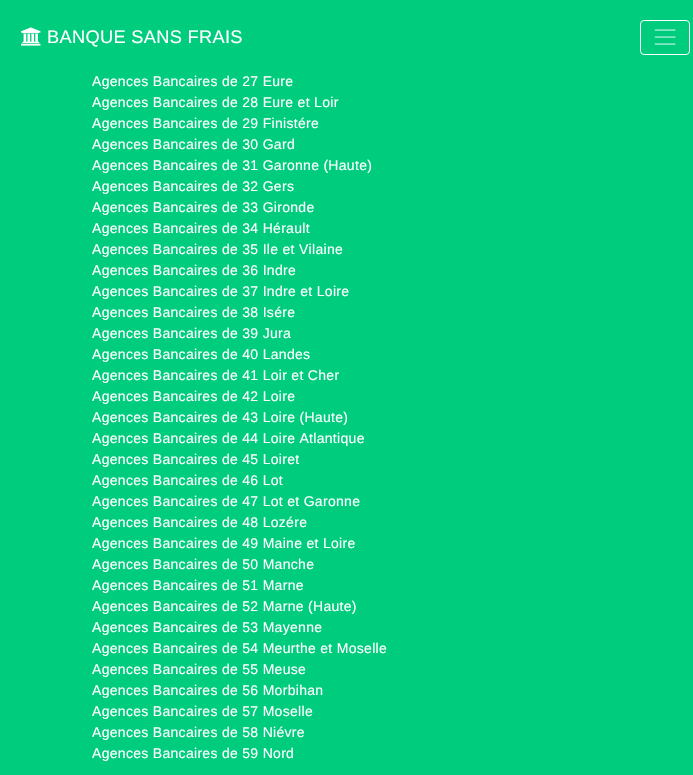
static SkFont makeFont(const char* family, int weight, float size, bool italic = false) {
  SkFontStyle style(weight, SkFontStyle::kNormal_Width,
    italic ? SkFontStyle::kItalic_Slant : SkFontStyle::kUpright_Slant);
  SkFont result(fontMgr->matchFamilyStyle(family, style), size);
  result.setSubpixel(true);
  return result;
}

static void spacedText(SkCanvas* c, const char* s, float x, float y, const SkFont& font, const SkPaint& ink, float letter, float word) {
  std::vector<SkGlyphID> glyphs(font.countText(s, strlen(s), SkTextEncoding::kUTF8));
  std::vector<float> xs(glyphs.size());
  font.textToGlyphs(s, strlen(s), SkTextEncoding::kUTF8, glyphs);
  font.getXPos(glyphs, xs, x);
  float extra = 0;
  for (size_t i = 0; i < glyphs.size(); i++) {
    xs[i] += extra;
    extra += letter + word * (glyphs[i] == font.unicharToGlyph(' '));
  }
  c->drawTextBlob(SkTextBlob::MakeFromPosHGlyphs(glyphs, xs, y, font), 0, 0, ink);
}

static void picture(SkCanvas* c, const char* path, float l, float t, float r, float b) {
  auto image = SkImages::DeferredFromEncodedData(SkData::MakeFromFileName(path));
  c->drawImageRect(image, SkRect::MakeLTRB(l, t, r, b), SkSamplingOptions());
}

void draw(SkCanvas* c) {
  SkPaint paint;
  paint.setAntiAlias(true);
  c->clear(0xff00cc7e);
  picture(c, "img_01.png", 21, 27, 41, 46);
  SkFont face1 = makeFont("Liberation Sans", 400, 18.25f);
  paint.setColor(0xffffffff);
  spacedText(c, "BANQUE SANS FRAIS", 47, 43, face1, paint, 0.3f, 0);
  paint.setStyle(SkPaint::kStroke_Style);
  paint.setStrokeWidth(1);
  c->drawRoundRect(SkRect::MakeLTRB(640.5f, 20.5f, 689.5f, 54.5f), 3.5f, 3.5f, paint);
  picture(c, "img_02.png", 654, 29, 676, 45);
  SkFont face2 = makeFont("Liberation Sans", 400, 14);
  paint.setStyle(SkPaint::kFill_Style);
  spacedText(c, "Agences Bancaires de 27 Eure", 92, 86, face2, paint, 0.3f, 0);
  spacedText(c, "Agences Bancaires de 28 Eure et Loir", 92, 107, face2, paint, 0.3f, 0);
  spacedText(c, "Agences Bancaires de 29 Finistére", 92, 128, face2, paint, 0.3f, 0);
  spacedText(c, "Agences Bancaires de 30 Gard", 92, 149, face2, paint, 0.3f, 0);
  spacedText(c, "Agences Bancaires de 31 Garonne (Haute)", 92, 170, face2, paint, 0.3f, 0);
  spacedText(c, "Agences Bancaires de 32 Gers", 92, 191, face2, paint, 0.3f, 0);
  spacedText(c, "Agences Bancaires de 33 Gironde", 92, 212, face2, paint, 0.3f, 0);
  spacedText(c, "Agences Bancaires de 34 Hérault", 92, 233, face2, paint, 0.3f, 0);
  spacedText(c, "Agences Bancaires de 35 Ile et Vilaine", 92, 254, face2, paint, 0.3f, 0);
  spacedText(c, "Agences Bancaires de 36 Indre", 92, 275, face2, paint, 0.3f, 0);
  spacedText(c, "Agences Bancaires de 37 Indre et Loire", 92, 296, face2, paint, 0.3f, 0);
  spacedText(c, "Agences Bancaires de 38 Isére", 92, 317, face2, paint, 0.3f, 0);
  spacedText(c, "Agences Bancaires de 39 Jura", 92, 338, face2, paint, 0.3f, 0);
  spacedText(c, "Agences Bancaires de 40 Landes", 92, 359, face2, paint, 0.3f, 0);
  spacedText(c, "Agences Bancaires de 41 Loir et Cher", 92, 380, face2, paint, 0.3f, 0);
  spacedText(c, "Agences Bancaires de 42 Loire", 92, 401, face2, paint, 0.3f, 0);
  spacedText(c, "Agences Bancaires de 43 Loire (Haute)", 92, 422, face2, paint, 0.3f, 0);
  spacedText(c, "Agences Bancaires de 44 Loire Atlantique", 92, 443, face2, paint, 0.3f, 0);
  spacedText(c, "Agences Bancaires de 45 Loiret", 92, 464, face2, paint, 0.3f, 0);
  spacedText(c, "Agences Bancaires de 46 Lot", 92, 485, face2, paint, 0.3f, 0);
  spacedText(c, "Agences Bancaires de 47 Lot et Garonne", 92, 506, face2, paint, 0.3f, 0);
  spacedText(c, "Agences Bancaires de 48 Lozére", 92, 527, face2, paint, 0.3f, 0);
  spacedText(c, "Agences Bancaires de 49 Maine et Loire", 92, 548, face2, paint, 0.3f, 0);
  spacedText(c, "Agences Bancaires de 50 Manche", 92, 569, face2, paint, 0.3f, 0);
  spacedText(c, "Agences Bancaires de 51 Marne", 92, 590, face2, paint, 0.3f, 0);
  spacedText(c, "Agences Bancaires de 52 Marne (Haute)", 92, 611, face2, paint, 0.3f, 0);
  spacedText(c, "Agences Bancaires de 53 Mayenne", 92, 632, face2, paint, 0.3f, 0);
  spacedText(c, "Agences Bancaires de 54 Meurthe et Moselle", 92, 653, face2, paint, 0.3f, 0);
  spacedText(c, "Agences Bancaires de 55 Meuse", 92, 674, face2, paint, 0.3f, 0);
  spacedText(c, "Agences Bancaires de 56 Morbihan", 92, 695, face2, paint, 0.3f, 0);
  spacedText(c, "Agences Bancaires de 57 Moselle", 92, 716, face2, paint, 0.3f, 0);
  spacedText(c, "Agences Bancaires de 58 Niévre", 92, 737, face2, paint, 0.3f, 0);
  spacedText(c, "Agences Bancaires de 59 Nord", 92, 758, face2, paint, 0.3f, 0);
}
